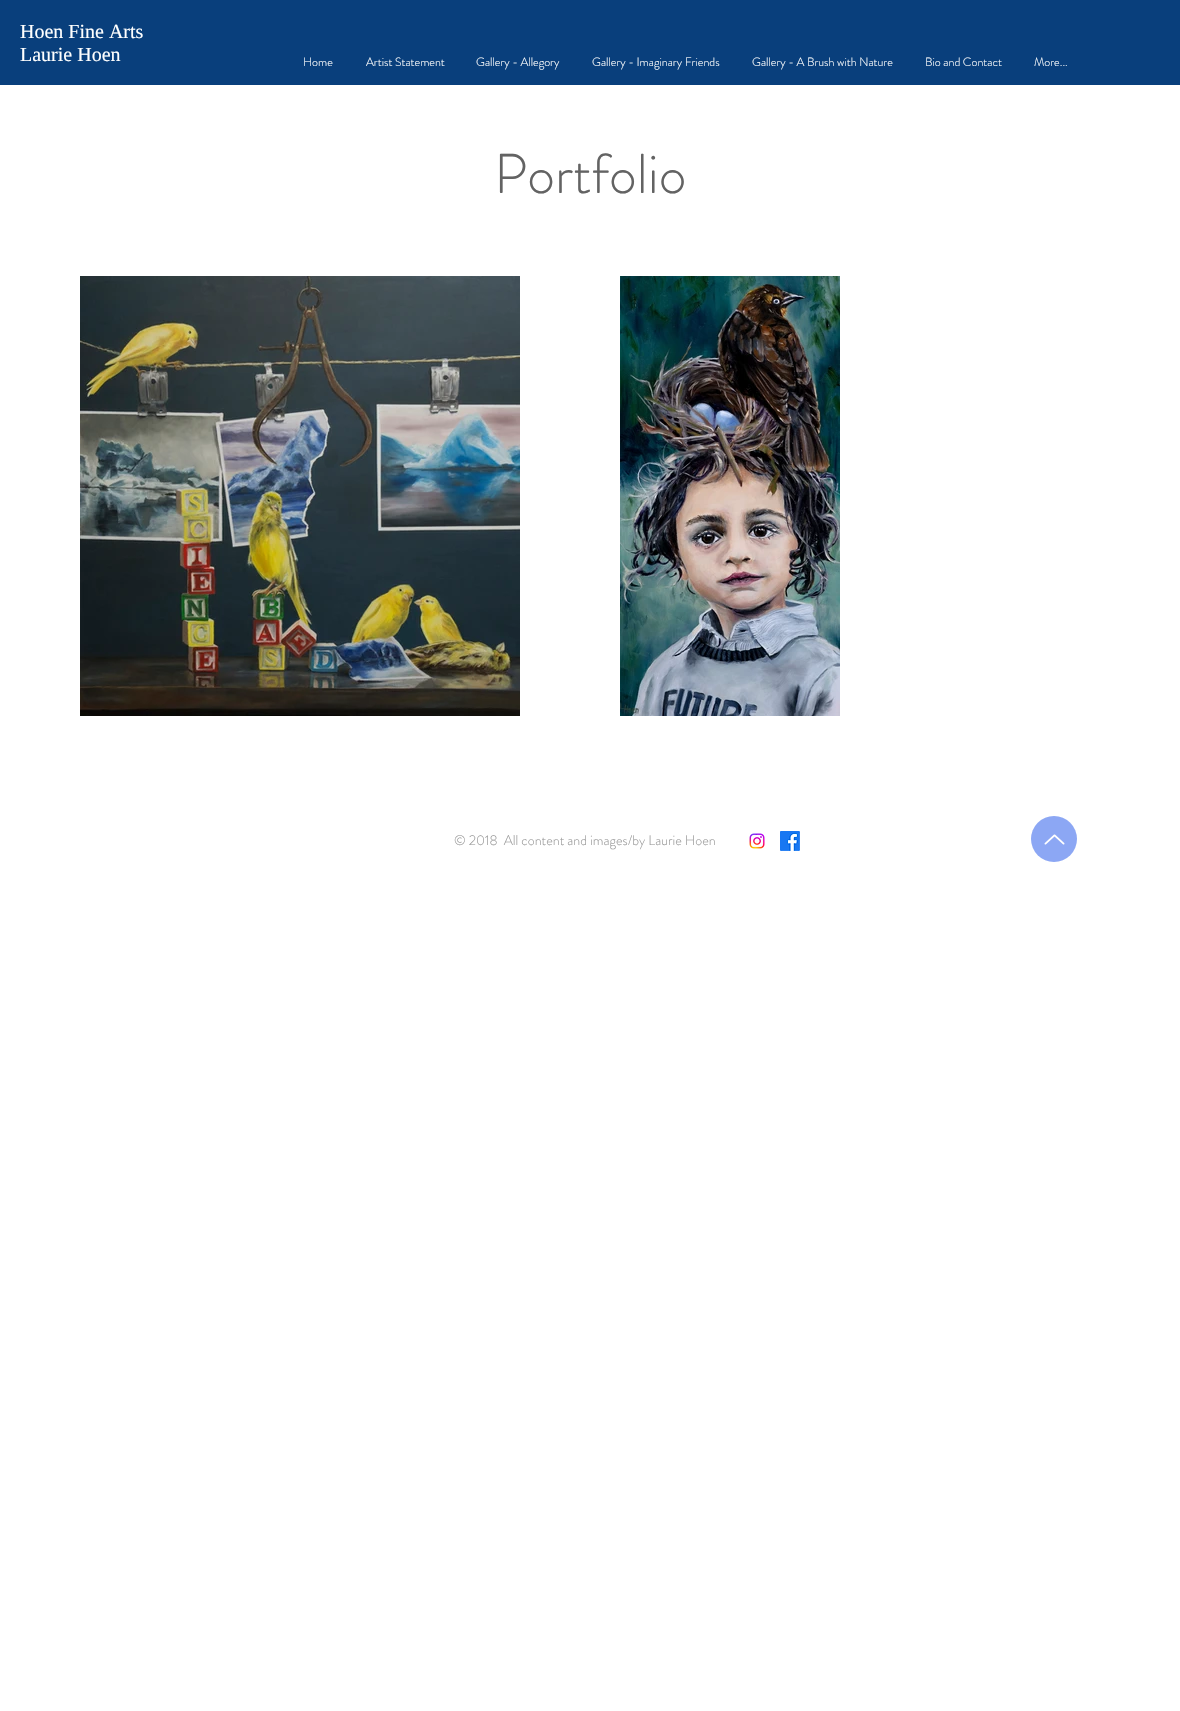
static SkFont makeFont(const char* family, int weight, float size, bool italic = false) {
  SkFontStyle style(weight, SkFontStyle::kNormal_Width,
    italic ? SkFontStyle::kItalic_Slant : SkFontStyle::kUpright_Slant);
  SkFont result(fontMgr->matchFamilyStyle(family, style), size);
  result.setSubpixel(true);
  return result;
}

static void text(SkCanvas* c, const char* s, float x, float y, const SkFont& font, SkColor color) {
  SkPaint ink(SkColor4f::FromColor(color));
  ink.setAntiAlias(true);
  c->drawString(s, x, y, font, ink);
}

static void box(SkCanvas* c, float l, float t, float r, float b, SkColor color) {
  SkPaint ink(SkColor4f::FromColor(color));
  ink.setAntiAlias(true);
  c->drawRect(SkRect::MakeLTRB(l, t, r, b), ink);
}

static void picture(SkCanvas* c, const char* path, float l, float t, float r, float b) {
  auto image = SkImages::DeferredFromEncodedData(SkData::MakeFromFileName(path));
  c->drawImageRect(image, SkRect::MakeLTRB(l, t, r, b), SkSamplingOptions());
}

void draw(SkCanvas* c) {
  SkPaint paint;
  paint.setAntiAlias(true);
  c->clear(0xffffffff);
  box(c, 0, 0, 1180, 85, 0xff093f7c);
  SkFont face1 = makeFont("Liberation Serif", 400, 20);
  text(c, "Hoen Fine Arts", 20, 38, face1, 0xffffffff);
  text(c, "Laurie Hoen", 20, 61, face1, 0xffffffff);
  SkFont face2 = makeFont("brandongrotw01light", 300, 12);
  text(c, "Home", 303, 66, face2, 0xffffffff);
  text(c, "Artist Statement", 366, 66, face2, 0xffffffff);
  text(c, "Gallery - Allegory", 476, 66, face2, 0xffffffff);
  text(c, "Gallery - Imaginary Friends", 592, 66, face2, 0xffffffff);
  text(c, "Gallery - A Brush with Nature", 752, 66, face2, 0xffffffff);
  text(c, "Bio and Contact", 925, 66, face2, 0xffffffff);
  text(c, "More...", 1034, 66, face2, 0xffffffff);
  SkFont face3 = makeFont("brandongrotw01light", 300, 56);
  text(c, "Portfolio", 494, 193, face3, 0xff636363);
  picture(c, "img_01.png", 80, 276, 520, 716);
  picture(c, "img_02.png", 620, 276, 840, 716);
  SkFont face4 = makeFont("brandongrotw01light", 300, 14);
  text(c, "© 2018  All content and images/by Laurie Hoen", 454, 845, face4, 0xff999999);
  picture(c, "img_03.png", 749, 833, 765, 849);
  picture(c, "img_04.png", 780, 831, 800, 851);
  paint.setColor(0xff8ca7f4);
  c->drawCircle(1054, 839, 23, paint);
  picture(c, "img_05.png", 1044, 834, 1065, 845);
}
